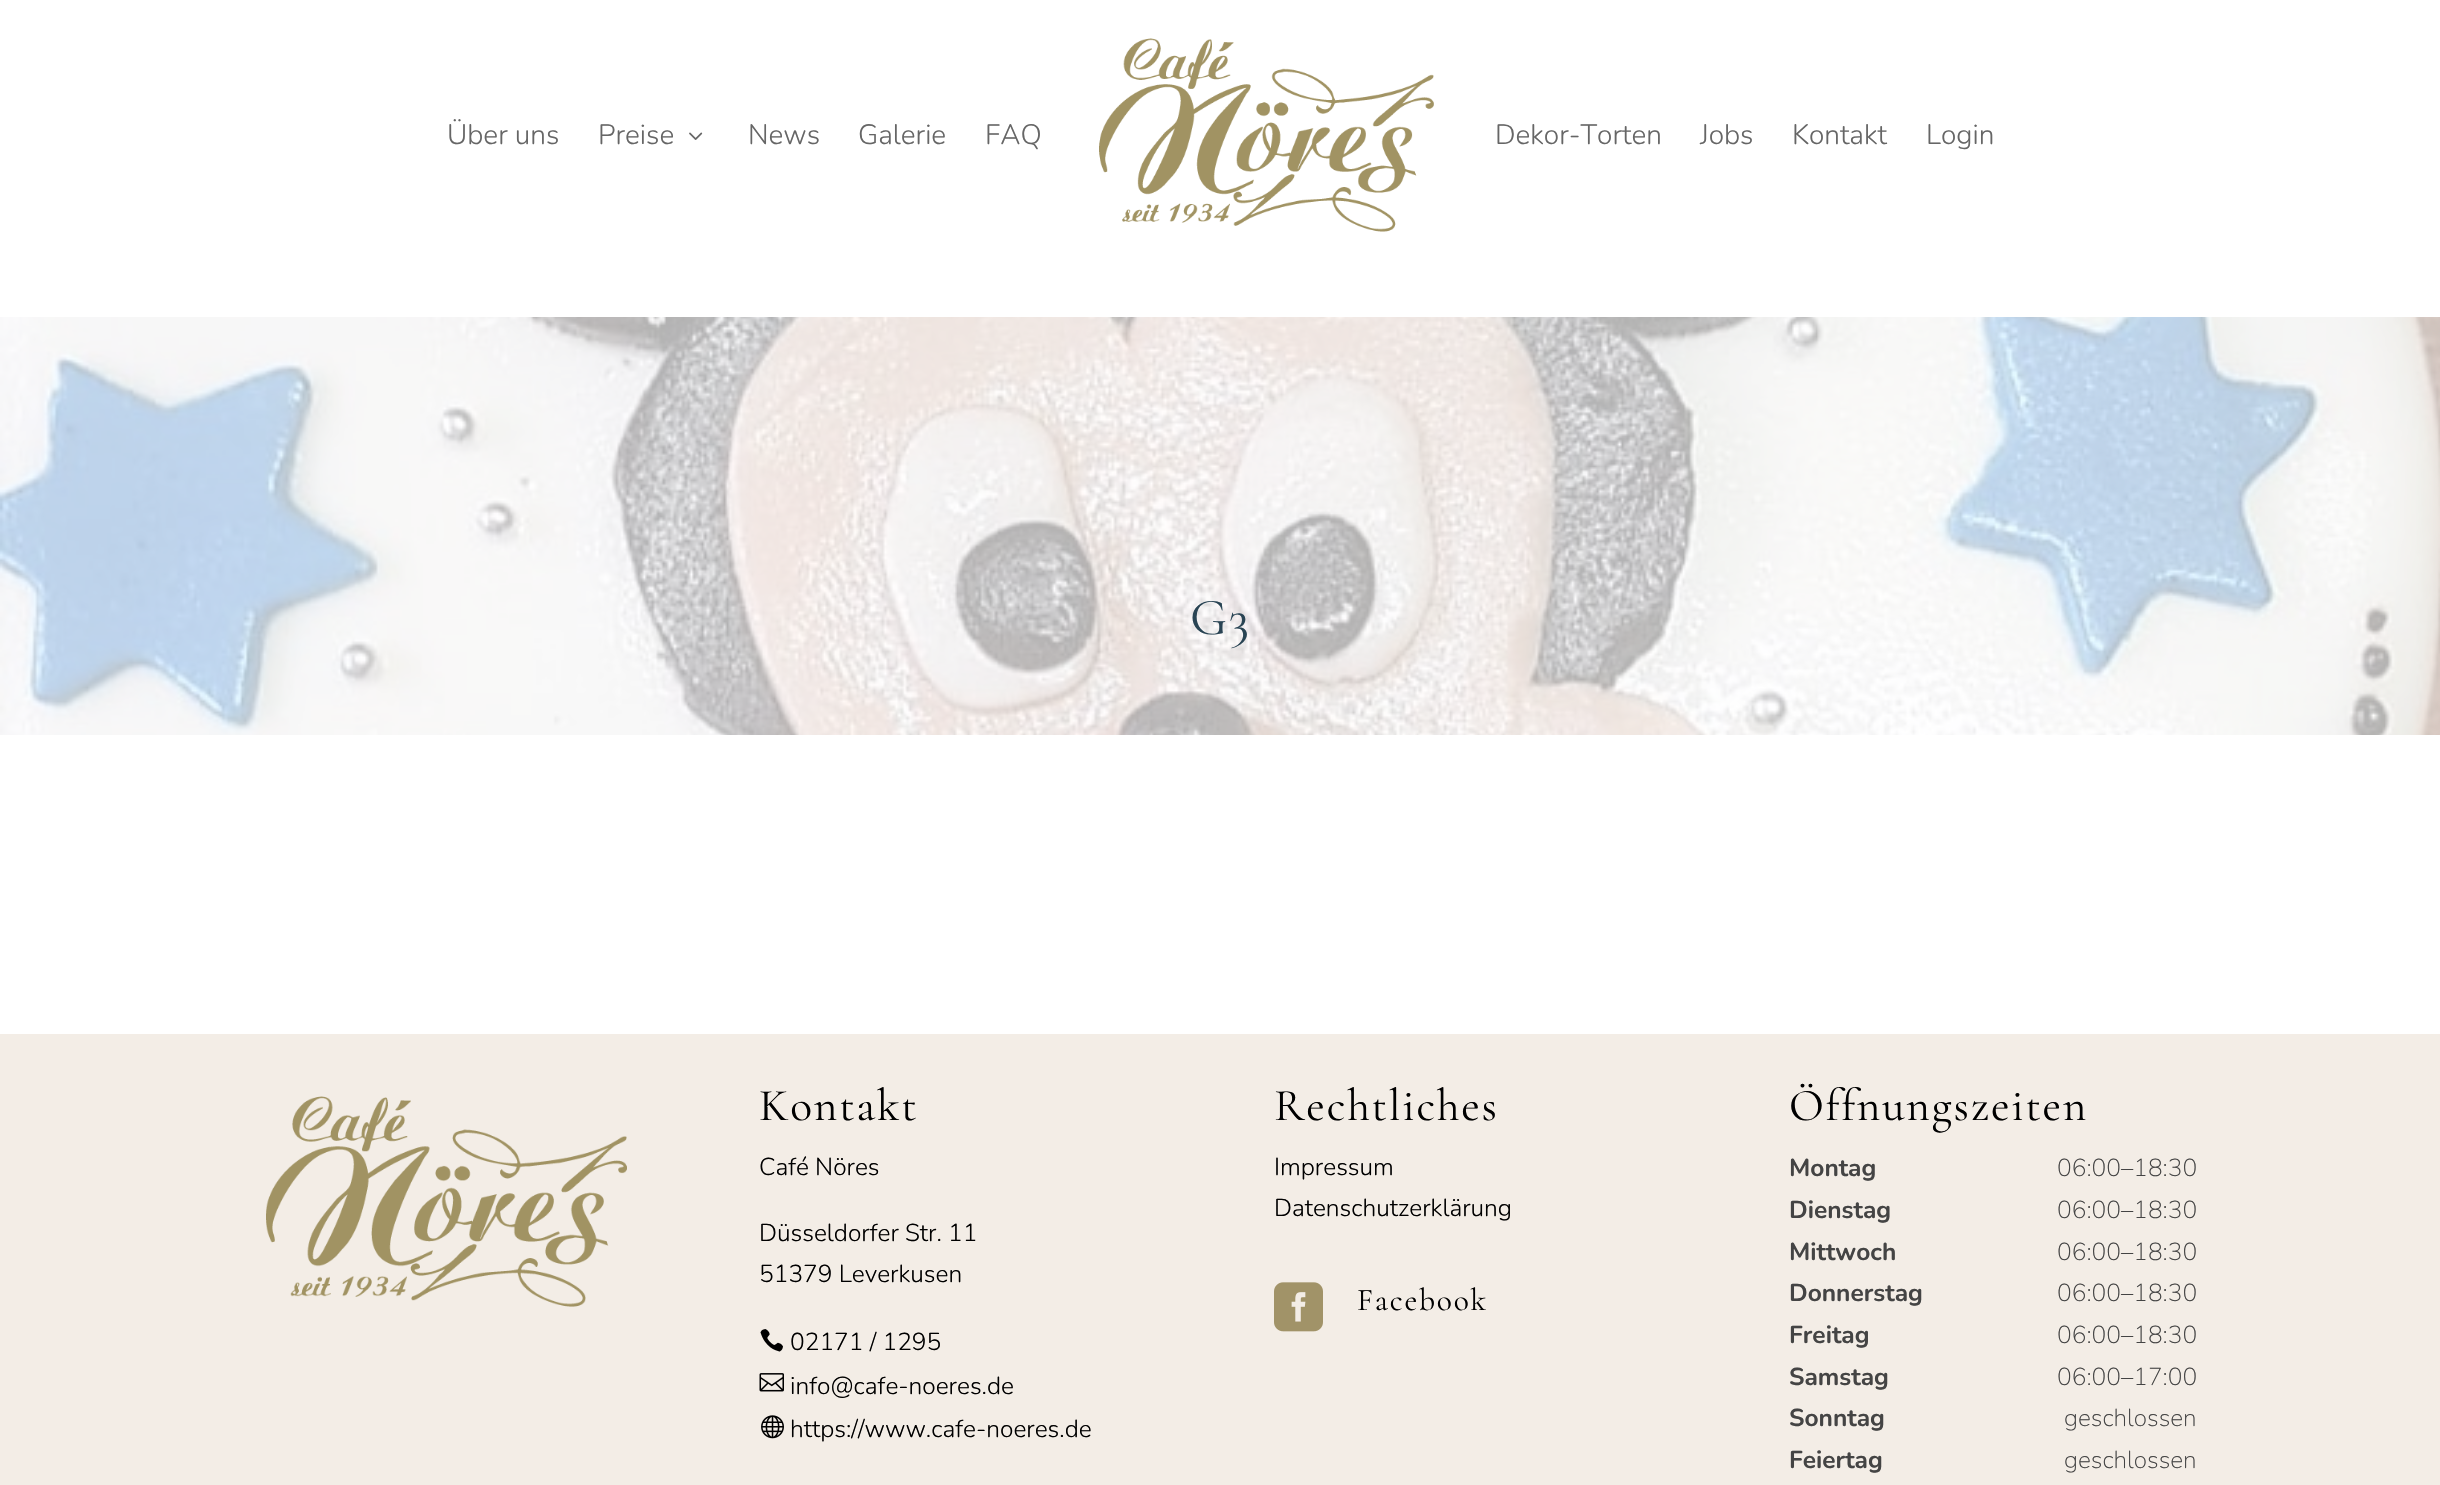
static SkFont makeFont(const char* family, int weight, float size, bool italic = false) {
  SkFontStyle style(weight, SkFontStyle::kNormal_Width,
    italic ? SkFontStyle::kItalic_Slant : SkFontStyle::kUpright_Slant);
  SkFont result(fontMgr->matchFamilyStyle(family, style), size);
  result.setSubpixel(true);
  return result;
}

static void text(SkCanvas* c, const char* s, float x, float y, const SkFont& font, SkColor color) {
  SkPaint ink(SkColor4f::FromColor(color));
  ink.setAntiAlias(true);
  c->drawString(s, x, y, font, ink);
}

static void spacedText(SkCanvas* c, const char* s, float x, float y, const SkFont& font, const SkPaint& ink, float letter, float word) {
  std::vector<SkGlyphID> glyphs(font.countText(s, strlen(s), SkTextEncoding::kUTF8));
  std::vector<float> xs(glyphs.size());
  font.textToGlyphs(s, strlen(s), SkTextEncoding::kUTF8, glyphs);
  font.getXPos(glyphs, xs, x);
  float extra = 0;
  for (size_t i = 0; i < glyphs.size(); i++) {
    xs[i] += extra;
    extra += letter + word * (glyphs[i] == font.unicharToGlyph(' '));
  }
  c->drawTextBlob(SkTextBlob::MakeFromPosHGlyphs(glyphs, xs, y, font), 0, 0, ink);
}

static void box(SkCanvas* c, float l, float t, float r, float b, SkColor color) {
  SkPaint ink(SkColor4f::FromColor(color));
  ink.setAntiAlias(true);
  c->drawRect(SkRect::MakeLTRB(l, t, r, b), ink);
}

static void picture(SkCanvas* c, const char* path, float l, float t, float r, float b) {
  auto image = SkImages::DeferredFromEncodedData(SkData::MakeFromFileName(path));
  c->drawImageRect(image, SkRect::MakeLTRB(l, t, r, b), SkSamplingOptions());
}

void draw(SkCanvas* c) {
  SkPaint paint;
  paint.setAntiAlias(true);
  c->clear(0xffffffff);
  SkFont face1 = makeFont("Nunito", 200, 28);
  text(c, "Über uns", 447, 144, face1, 0xff666666);
  text(c, "Preise", 598, 144, face1, 0xff666666);
  picture(c, "img_01.png", 689, 132, 703, 140);
  text(c, "News", 748, 144, face1, 0xff666666);
  text(c, "Galerie", 858, 144, face1, 0xff666666);
  text(c, "FAQ", 985, 144, face1, 0xff666666);
  picture(c, "img_02.png", 1099, 38, 1434, 232);
  text(c, "Dekor-Torten", 1495, 144, face1, 0xff666666);
  text(c, "Jobs", 1700, 144, face1, 0xff666666);
  text(c, "Kontakt", 1792, 144, face1, 0xff666666);
  text(c, "Login", 1926, 144, face1, 0xff666666);
  picture(c, "img_03.png", 0, 317, 2440, 735);
  SkFont face2 = makeFont("Cormorant Garamond", 300, 52);
  paint.setColor(0xff294454);
  spacedText(c, "G3", 1190, 634, face2, paint, 1.75f, 0);
  box(c, 0, 1034, 2440, 1485, 0xfff3ede6);
  picture(c, "img_04.png", 266, 1096, 627, 1307);
  SkFont face3 = makeFont("Cormorant Garamond", 300, 45.5f);
  paint.setColor(0xff000000);
  spacedText(c, "Kontakt", 759, 1120, face3, paint, 1.75f, 0);
  SkFont face4 = makeFont("Nunito", 200, 24.5f);
  text(c, "Café Nöres", 759, 1175, face4, 0xff000000);
  text(c, "Düsseldorfer Str. 11", 759, 1241, face4, 0xff000000);
  text(c, "51379 Leverkusen", 759, 1282, face4, 0xff000000);
  picture(c, "img_05.png", 760, 1329, 783, 1352);
  text(c, "02171 / 1295", 790, 1350, face4, 0xff000000);
  picture(c, "img_06.png", 759, 1373, 784, 1392);
  text(c, "info@cafe-noeres.de", 790, 1394, face4, 0xff000000);
  picture(c, "img_07.png", 761, 1415, 784, 1439);
  text(c, "https://www.cafe-noeres.de", 790, 1437, face4, 0xff000000);
  spacedText(c, "Rechtliches", 1274, 1120, face3, paint, 1.75f, 0);
  text(c, "Impressum", 1274, 1175, face4, 0xff000000);
  text(c, "Datenschutzerklärung", 1274, 1216, face4, 0xff000000);
  picture(c, "img_08.png", 1274, 1282, 1323, 1332);
  SkFont face5 = makeFont("Cormorant Garamond", 300, 31.5f);
  spacedText(c, "Facebook", 1357, 1310, face5, paint, 1.75f, 0);
  spacedText(c, "Öffnungszeiten", 1789, 1120, face3, paint, 1.75f, 0);
  SkFont face6 = makeFont("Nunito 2", 200, 24.5f);
  text(c, "Montag", 1789, 1176, face6, 0xff444444);
  SkFont face7 = makeFont("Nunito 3", 200, 24.5f);
  text(c, "06:00–18:30", 2057, 1176, face7, 0xff444444);
  text(c, "Dienstag", 1789, 1218, face6, 0xff444444);
  text(c, "06:00–18:30", 2057, 1218, face7, 0xff444444);
  text(c, "Mittwoch", 1789, 1260, face6, 0xff444444);
  text(c, "06:00–18:30", 2057, 1260, face7, 0xff444444);
  text(c, "Donnerstag", 1789, 1301, face6, 0xff444444);
  text(c, "06:00–18:30", 2057, 1301, face7, 0xff444444);
  text(c, "Freitag", 1789, 1343, face6, 0xff444444);
  text(c, "06:00–18:30", 2057, 1343, face7, 0xff444444);
  text(c, "Samstag", 1789, 1385, face6, 0xff444444);
  text(c, "06:00–17:00", 2057, 1385, face7, 0xff444444);
  text(c, "Sonntag", 1789, 1426, face6, 0xff444444);
  text(c, "geschlossen", 2064, 1426, face7, 0xff444444);
  text(c, "Feiertag", 1789, 1468, face6, 0xff444444);
  text(c, "geschlossen", 2064, 1468, face7, 0xff444444);
}
